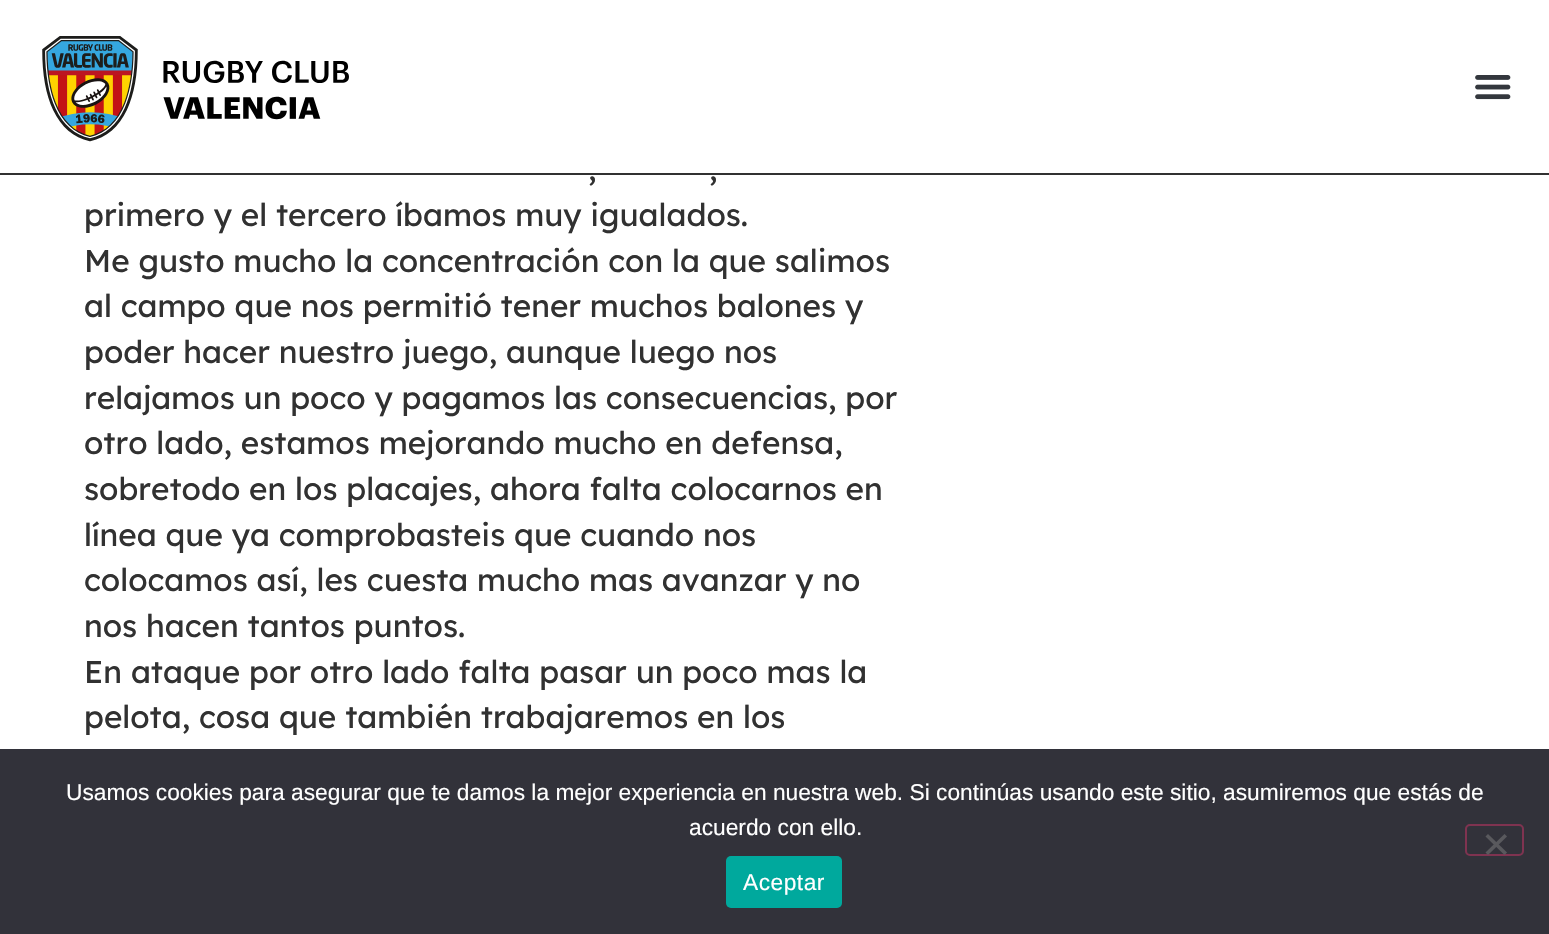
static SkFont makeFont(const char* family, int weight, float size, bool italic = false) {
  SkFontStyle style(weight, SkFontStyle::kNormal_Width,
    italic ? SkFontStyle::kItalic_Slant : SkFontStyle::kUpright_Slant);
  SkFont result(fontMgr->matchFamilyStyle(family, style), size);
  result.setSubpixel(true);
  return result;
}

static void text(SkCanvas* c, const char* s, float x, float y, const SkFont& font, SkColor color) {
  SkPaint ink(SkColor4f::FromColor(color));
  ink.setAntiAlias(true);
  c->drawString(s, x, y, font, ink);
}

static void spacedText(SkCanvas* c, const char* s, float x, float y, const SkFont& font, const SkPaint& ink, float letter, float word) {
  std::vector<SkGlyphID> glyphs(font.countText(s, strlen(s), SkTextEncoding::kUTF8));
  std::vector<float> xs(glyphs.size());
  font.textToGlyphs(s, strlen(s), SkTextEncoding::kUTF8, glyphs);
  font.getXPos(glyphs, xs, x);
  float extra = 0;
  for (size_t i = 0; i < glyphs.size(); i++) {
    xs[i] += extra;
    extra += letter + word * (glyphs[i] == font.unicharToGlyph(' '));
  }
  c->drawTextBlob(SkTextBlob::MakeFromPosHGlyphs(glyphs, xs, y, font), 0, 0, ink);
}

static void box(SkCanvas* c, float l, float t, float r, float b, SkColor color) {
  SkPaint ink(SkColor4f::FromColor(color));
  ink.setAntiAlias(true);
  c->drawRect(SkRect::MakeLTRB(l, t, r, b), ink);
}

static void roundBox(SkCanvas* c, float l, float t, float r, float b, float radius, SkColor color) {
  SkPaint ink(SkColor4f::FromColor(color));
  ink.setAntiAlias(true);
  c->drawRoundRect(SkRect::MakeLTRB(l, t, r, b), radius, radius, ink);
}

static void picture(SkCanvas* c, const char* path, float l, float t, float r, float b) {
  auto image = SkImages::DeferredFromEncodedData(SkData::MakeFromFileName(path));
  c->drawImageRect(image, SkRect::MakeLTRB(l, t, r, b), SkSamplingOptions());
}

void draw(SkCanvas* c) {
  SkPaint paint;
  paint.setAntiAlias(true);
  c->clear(0xffffffff);
  box(c, 0, 173, 1549, 175, 0xff313131);
  picture(c, "img_01.png", 42, 36, 349, 142);
  picture(c, "img_02.png", 1475, 75, 1511, 100);
  SkFont face1 = makeFont("Lexend", 400, 31.5f);
  text(c, ",", 588, 180, face1, 0xff313131);
  text(c, ",", 709, 180, face1, 0xff313131);
  text(c, "primero y el tercero íbamos muy igualados.", 84, 226, face1, 0xff313131);
  text(c, "Me gusto mucho la concentración con la que salimos", 84, 272, face1, 0xff313131);
  text(c, "al campo que nos permitió tener muchos balones y", 84, 317, face1, 0xff313131);
  text(c, "poder hacer nuestro juego, aunque luego nos", 84, 363, face1, 0xff313131);
  text(c, "relajamos un poco y pagamos las consecuencias, por", 84, 409, face1, 0xff313131);
  text(c, "otro lado, estamos mejorando mucho en defensa,", 84, 454, face1, 0xff313131);
  text(c, "sobretodo en los placajes, ahora falta colocarnos en", 84, 500, face1, 0xff313131);
  text(c, "línea que ya comprobasteis que cuando nos", 84, 546, face1, 0xff313131);
  text(c, "colocamos así, les cuesta mucho mas avanzar y no", 84, 591, face1, 0xff313131);
  text(c, "nos hacen tantos puntos.", 84, 637, face1, 0xff313131);
  text(c, "En ataque por otro lado falta pasar un poco mas la", 84, 683, face1, 0xff313131);
  text(c, "pelota, cosa que también trabajaremos en los", 84, 728, face1, 0xff313131);
  box(c, 0, 749, 1549, 934, 0xff32323a);
  SkFont face2 = makeFont("Liberation Sans", 400, 22.75f);
  text(c, "Usamos cookies para asegurar que te damos la mejor experiencia en nuestra web. Si continúas usando este sitio, asumiremos que estás de", 66, 800, face2, 0xffffffff);
  text(c, "acuerdo con ello.", 689, 835, face2, 0xffffffff);
  paint.setStyle(SkPaint::kStroke_Style);
  paint.setStrokeWidth(2);
  paint.setColor(0xff7f3350);
  c->drawRoundRect(SkRect::MakeLTRB(1466, 825, 1523, 855), 4, 4, paint);
  paint.setStyle(SkPaint::kFill_Style);
  paint.setColor(0xff59595d);
  c->drawPath(SkPathBuilder().moveTo(1504.5f, 834).lineTo(1507, 836.5f).lineTo(1488, 855).lineTo(1485.5f, 852.5f).close().detach(), paint);
  c->drawPath(SkPathBuilder().moveTo(1485.5f, 836.5f).lineTo(1488, 834).lineTo(1507, 852.5f).lineTo(1504.5f, 855).close().detach(), paint);
  roundBox(c, 726, 856, 842, 908, 5, 0xff00a99d);
  paint.setColor(0xffffffff);
  spacedText(c, "Aceptar", 743, 890, face2, paint, 0.5f, 0);
}
